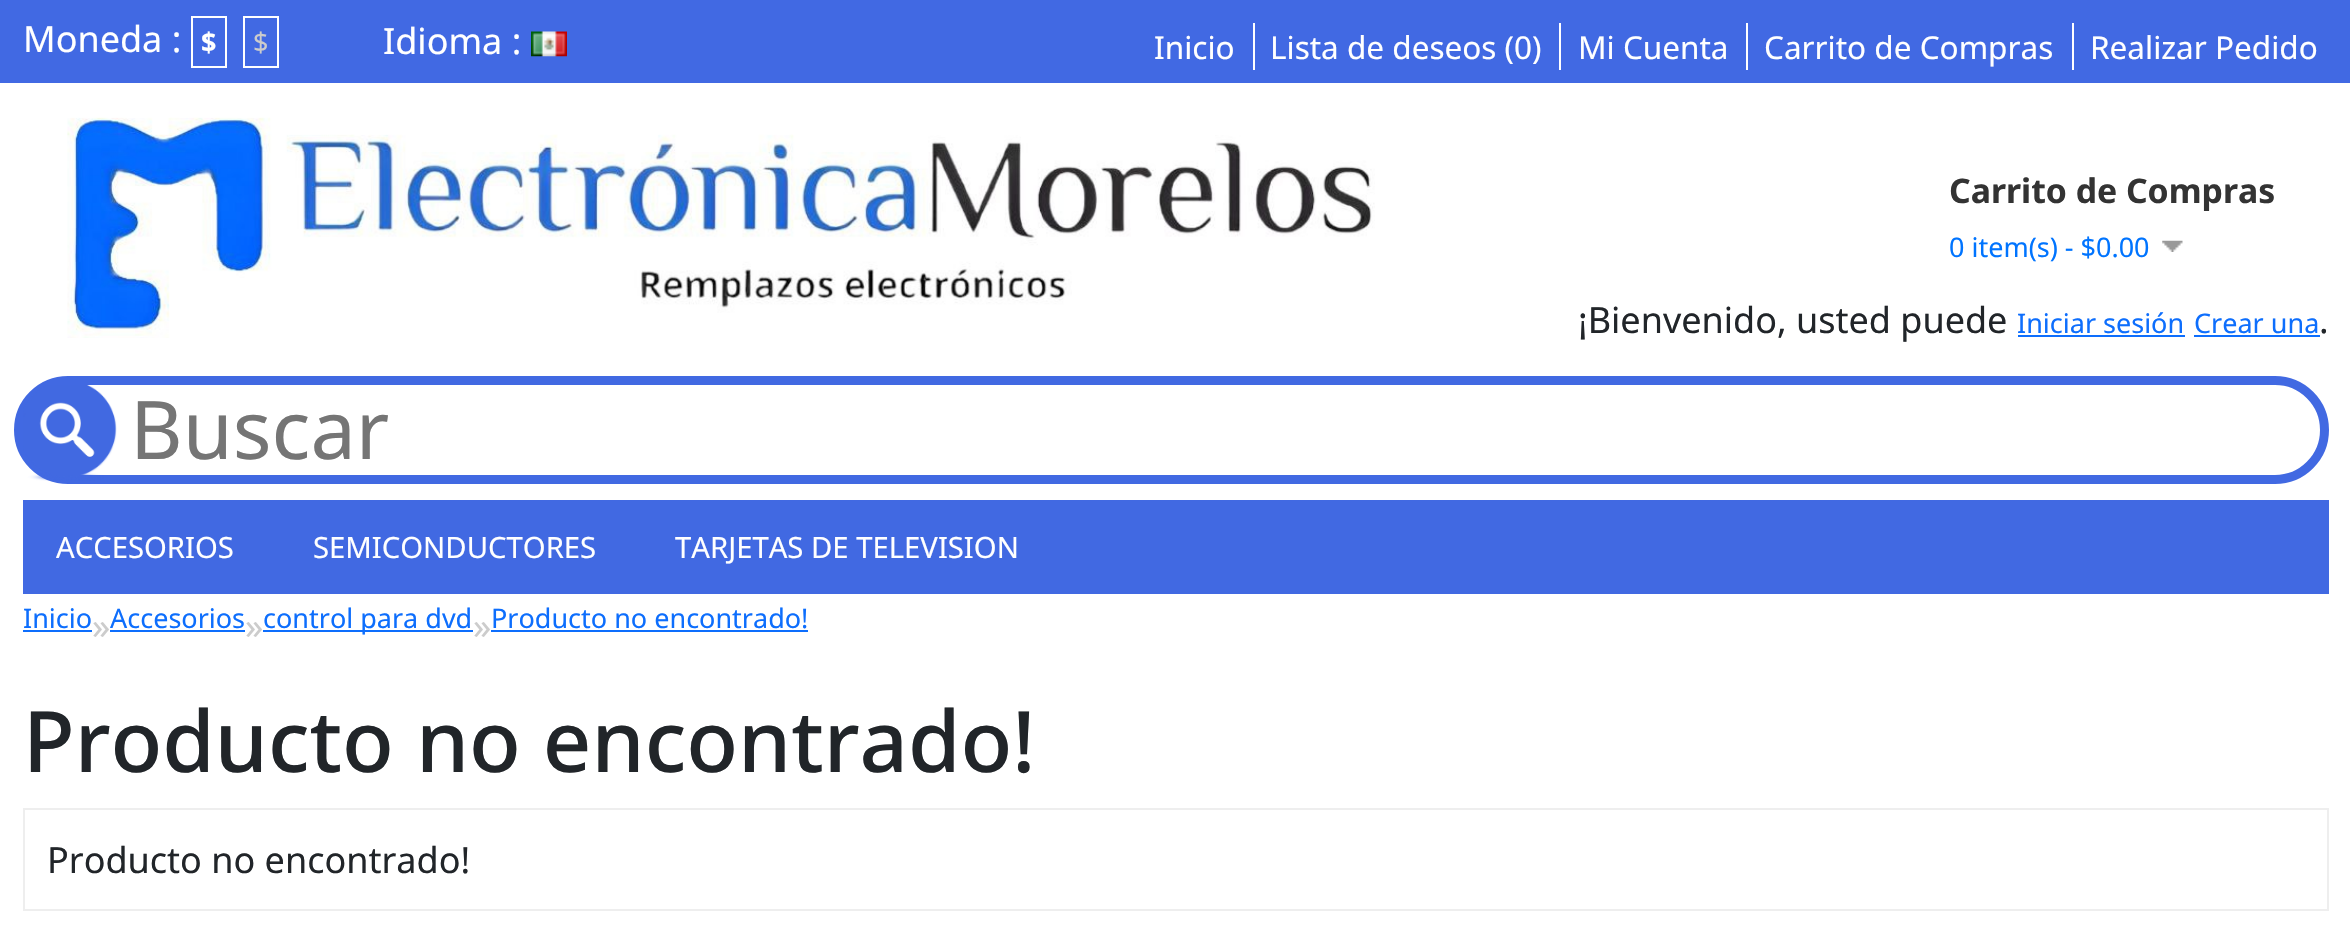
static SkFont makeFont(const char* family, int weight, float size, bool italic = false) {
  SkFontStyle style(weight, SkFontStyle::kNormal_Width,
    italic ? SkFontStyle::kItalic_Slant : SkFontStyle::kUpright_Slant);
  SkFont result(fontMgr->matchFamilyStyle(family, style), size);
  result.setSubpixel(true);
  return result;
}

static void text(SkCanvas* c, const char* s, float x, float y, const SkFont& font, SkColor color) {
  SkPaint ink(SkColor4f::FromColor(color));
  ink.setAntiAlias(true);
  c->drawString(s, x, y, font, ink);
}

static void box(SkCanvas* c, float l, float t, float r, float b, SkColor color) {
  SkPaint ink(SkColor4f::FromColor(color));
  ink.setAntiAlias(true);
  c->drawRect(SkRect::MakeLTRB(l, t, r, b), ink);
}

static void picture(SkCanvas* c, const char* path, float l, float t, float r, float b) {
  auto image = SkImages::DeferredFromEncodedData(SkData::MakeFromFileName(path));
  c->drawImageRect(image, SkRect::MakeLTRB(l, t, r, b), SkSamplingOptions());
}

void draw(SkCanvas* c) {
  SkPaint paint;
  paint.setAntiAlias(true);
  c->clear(0xffffffff);
  box(c, 0, 0, 2350, 83, 0xff4169e3);
  SkFont face1 = makeFont("Noto Sans", 400, 36);
  text(c, "Moneda :", 23, 52, face1, 0xffffffff);
  paint.setStyle(SkPaint::kStroke_Style);
  paint.setStrokeWidth(2);
  paint.setColor(0xffffffff);
  c->drawRect(SkRect::MakeLTRB(192, 17, 226, 67), paint);
  SkFont face2 = makeFont("Noto Sans", 700, 27);
  text(c, "$", 201, 52, face2, 0xffffffff);
  c->drawRect(SkRect::MakeLTRB(244, 17, 278, 67), paint);
  SkFont face3 = makeFont("Noto Sans", 400, 27);
  text(c, "$", 253, 52, face3, 0xffcccccc);
  text(c, "Idioma :", 383, 54, face1, 0xffffffff);
  picture(c, "img_01.png", 531, 31, 567, 57);
  SkFont face4 = makeFont("Noto Sans", 400, 31.5f);
  text(c, "Inicio", 1154, 59, face4, 0xffffffff);
  box(c, 1253, 23, 1255, 70, 0xffffffff);
  text(c, "Lista de deseos (0)", 1270, 59, face4, 0xffffffff);
  box(c, 1559, 23, 1561, 70, 0xffffffff);
  text(c, "Mi Cuenta", 1578, 59, face4, 0xffffffff);
  box(c, 1746, 23, 1748, 70, 0xffffffff);
  text(c, "Carrito de Compras", 1764, 59, face4, 0xffffffff);
  box(c, 2072, 23, 2074, 70, 0xffffffff);
  text(c, "Realizar Pedido", 2090, 59, face4, 0xffffffff);
  picture(c, "img_02.png", 67, 117, 1375, 338);
  SkFont face5 = makeFont("Noto Sans", 700, 33.75f);
  text(c, "Carrito de Compras", 1949, 203, face5, 0xff333333);
  text(c, "0 item(s) - $0.00", 1949, 257, face3, 0xff0074ff);
  picture(c, "img_03.png", 2162, 240, 2183, 252);
  text(c, "¡Bienvenido, usted puede", 1578, 333, face1, 0xff212529);
  text(c, "Iniciar sesión", 2017, 333, face3, 0xff0d6efd);
  box(c, 2018, 335, 2185, 337, 0xff0d6efd);
  text(c, "Crear una", 2194, 333, face3, 0xff0d6efd);
  box(c, 2194, 335, 2320, 337, 0xff0d6efd);
  text(c, ".", 2319, 333, face1, 0xff212529);
  paint.setStrokeWidth(9);
  paint.setColor(0xff4169e2);
  c->drawRoundRect(SkRect::MakeLTRB(18.5f, 380.5f, 2324.5f, 479.5f), 49.5f, 49.5f, paint);
  picture(c, "img_04.png", 23, 385, 117, 481);
  SkFont face6 = makeFont("Noto Sans", 400, 81);
  text(c, "Buscar", 130, 459, face6, 0xff757575);
  box(c, 23, 500, 2329, 594, 0xff4169e2);
  SkFont face7 = makeFont("Noto Sans", 400, 29.25f);
  text(c, "ACCESORIOS", 56, 558, face7, 0xffffffff);
  text(c, "SEMICONDUCTORES", 313, 558, face7, 0xffffffff);
  text(c, "TARJETAS DE TELEVISION", 675, 558, face7, 0xffffffff);
  text(c, "Inicio", 23, 628, face3, 0xff0d6efd);
  box(c, 23, 630, 92, 632, 0xff0d6efd);
  text(c, "»", 92, 639, face1, 0xffcccccc);
  text(c, "Accesorios", 110, 628, face3, 0xff0d6efd);
  box(c, 110, 630, 245, 632, 0xff0d6efd);
  text(c, "»", 245, 639, face1, 0xffcccccc);
  box(c, 263, 630, 473, 632, 0xff0d6efd);
  text(c, "control para dvd", 263, 628, face3, 0xff0d6efd);
  text(c, "»", 473, 639, face1, 0xffcccccc);
  text(c, "Producto no encontrado!", 491, 628, face3, 0xff0d6efd);
  box(c, 491, 630, 808, 632, 0xff0d6efd);
  SkFont face8 = makeFont("Noto Sans", 500, 84.75f);
  text(c, "Producto no encontrado!", 23, 772, face8, 0xff212529);
  paint.setStrokeWidth(2);
  paint.setColor(0xffeeeeee);
  c->drawRect(SkRect::MakeLTRB(24, 809, 2328, 910), paint);
  text(c, "Producto no encontrado!", 47, 873, face1, 0xff212529);
}
